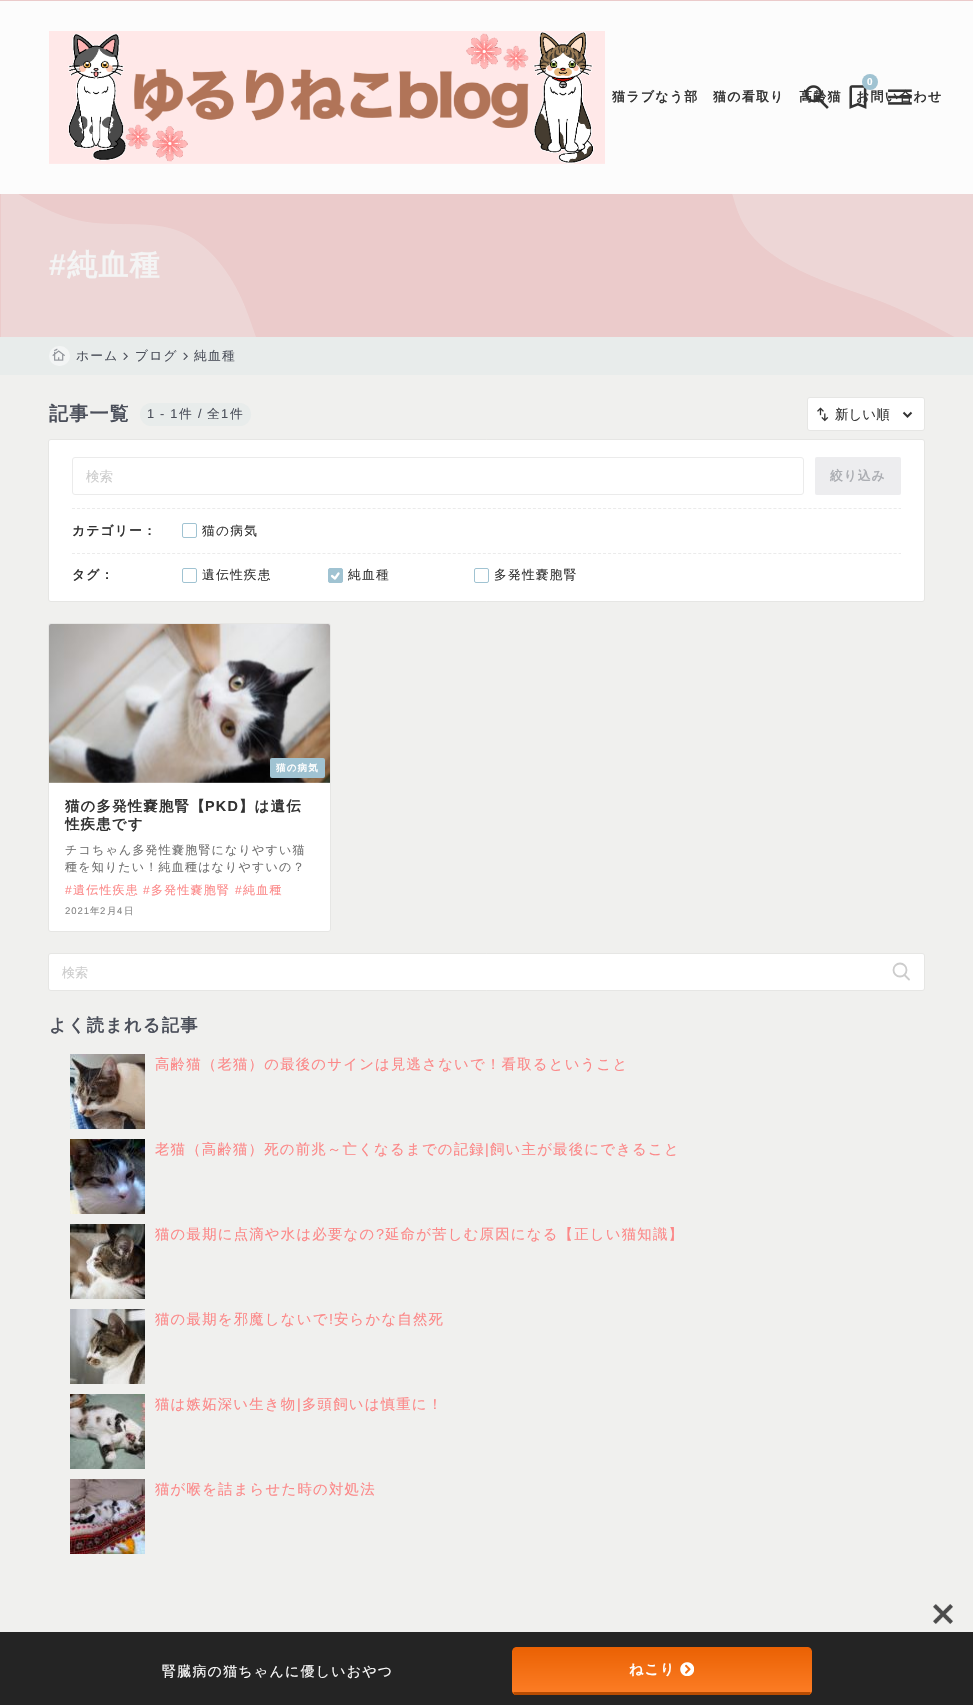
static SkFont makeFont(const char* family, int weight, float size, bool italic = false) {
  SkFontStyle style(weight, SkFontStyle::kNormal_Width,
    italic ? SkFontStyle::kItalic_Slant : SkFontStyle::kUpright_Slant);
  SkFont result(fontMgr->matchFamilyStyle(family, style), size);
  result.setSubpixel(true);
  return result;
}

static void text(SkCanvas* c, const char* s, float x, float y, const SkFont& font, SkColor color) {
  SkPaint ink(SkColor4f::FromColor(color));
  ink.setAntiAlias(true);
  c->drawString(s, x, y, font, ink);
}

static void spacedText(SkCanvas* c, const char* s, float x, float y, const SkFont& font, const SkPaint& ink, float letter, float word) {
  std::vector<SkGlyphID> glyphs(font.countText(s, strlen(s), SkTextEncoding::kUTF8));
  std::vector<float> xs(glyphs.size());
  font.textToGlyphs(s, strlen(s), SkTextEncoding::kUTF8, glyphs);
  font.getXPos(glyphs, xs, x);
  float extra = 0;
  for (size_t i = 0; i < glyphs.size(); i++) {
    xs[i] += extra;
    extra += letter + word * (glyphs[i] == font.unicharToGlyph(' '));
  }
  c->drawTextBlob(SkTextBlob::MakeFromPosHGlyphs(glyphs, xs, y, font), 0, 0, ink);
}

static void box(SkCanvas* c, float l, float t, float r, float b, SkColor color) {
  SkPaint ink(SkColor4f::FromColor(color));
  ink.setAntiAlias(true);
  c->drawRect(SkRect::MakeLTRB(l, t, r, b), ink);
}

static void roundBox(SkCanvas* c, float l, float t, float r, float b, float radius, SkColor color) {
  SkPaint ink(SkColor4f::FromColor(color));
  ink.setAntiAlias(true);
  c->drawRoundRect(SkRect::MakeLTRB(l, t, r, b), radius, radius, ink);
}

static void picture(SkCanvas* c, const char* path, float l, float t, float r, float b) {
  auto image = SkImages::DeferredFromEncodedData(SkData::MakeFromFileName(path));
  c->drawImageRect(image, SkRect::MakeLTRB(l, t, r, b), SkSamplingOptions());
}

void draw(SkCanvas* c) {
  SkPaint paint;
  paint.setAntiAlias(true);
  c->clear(0xfff0f0ee);
  box(c, 0, 0, 973, 1, 0xffebcbcb);
  box(c, 0, 1, 973, 194, 0xfffcfcfc);
  picture(c, "img_01.png", 49, 31, 605, 164);
  SkFont face1 = makeFont("WenQuanYi Zen Hei", 700, 13);
  paint.setColor(0xff333333);
  spacedText(c, "お問い合わせ", 856, 101, face1, paint, 1.2f, 0);
  picture(c, "img_02.png", 849, 85, 867, 109);
  paint.setColor(0xffa0c3d2);
  c->drawCircle(870, 82, 8, paint);
  SkFont face2 = makeFont("Liberation Sans", 700, 10);
  paint.setColor(0xffffffff);
  spacedText(c, "0", 867, 85, face2, paint, -1, 0);
  paint.setColor(0xff333333);
  spacedText(c, "高齢猫", 799, 101, face1, paint, 1.2f, 0);
  picture(c, "img_03.png", 805, 85, 829, 109);
  picture(c, "img_04.png", 888, 89, 912, 105);
  spacedText(c, "猫ラブなう部", 612, 101, face1, paint, 1.2f, 0);
  spacedText(c, "猫の看取り", 713, 101, face1, paint, 1.2f, 0);
  box(c, 0, 194, 973, 337, 0xffebcbcb);
  picture(c, "img_05.png", 1, 194, 973, 337);
  SkFont face3 = makeFont("Liberation Sans", 700, 30);
  paint.setColor(0xfff4f4f4);
  spacedText(c, "#", 49, 275, face3, paint, 1.2f, 0);
  SkFont face4 = makeFont("WenQuanYi Zen Hei", 700, 30);
  spacedText(c, "純血種", 67, 275, face4, paint, 1.2f, 0);
  box(c, 0, 337, 973, 375, 0xffe8eceb);
  roundBox(c, 49, 346, 70, 366, 10, 0xccf6f7f7);
  picture(c, "img_06.png", 52, 348, 65, 361);
  SkFont face5 = makeFont("WenQuanYi Zen Hei", 500, 12.75f);
  paint.setColor(0xff4b4f5a);
  spacedText(c, "ホーム", 76, 360, face5, paint, 1.2f, 0);
  picture(c, "img_07.png", 123, 352, 128, 360);
  spacedText(c, "ブログ", 135, 360, face5, paint, 1.2f, 0);
  picture(c, "img_07.png", 183, 352, 188, 360);
  spacedText(c, "純血種", 194, 360, face5, paint, 1.2f, 0);
  SkFont face6 = makeFont("WenQuanYi Zen Hei", 700, 19);
  spacedText(c, "記事一覧", 49, 420, face6, paint, 1.2f, 0);
  roundBox(c, 140, 403, 251, 426, 11.5f, 0xffe8eceb);
  SkFont face7 = makeFont("Liberation Sans", 400, 12.75f);
  spacedText(c, "1 - 1", 147, 418, face7, paint, 1.2f, 0);
  spacedText(c, "件", 179, 418, face5, paint, 1.2f, 0);
  spacedText(c, "/", 198, 418, face7, paint, 1.2f, 0);
  spacedText(c, "全", 207, 418, face5, paint, 1.2f, 0);
  spacedText(c, "1", 221, 418, face7, paint, 1.2f, 0);
  spacedText(c, "件", 230, 418, face5, paint, 1.2f, 0);
  paint.setStyle(SkPaint::kStroke_Style);
  paint.setStrokeWidth(1);
  paint.setColor(0xffe6e6e4);
  c->drawRoundRect(SkRect::MakeLTRB(807.5f, 397.5f, 924.5f, 430.5f), 2.5f, 2.5f, paint);
  roundBox(c, 808, 398, 924, 430, 2, 0xffffffff);
  picture(c, "img_08.png", 817, 407, 829, 422);
  paint.setStrokeWidth(2);
  paint.setColor(0xff333333);
  c->drawPath(SkPathBuilder().moveTo(903.5f, 412.5f).lineTo(907.5f, 416.5f).lineTo(911.5f, 412.5f).detach(), paint);
  SkFont face8 = makeFont("WenQuanYi Zen Hei", 500, 13.5f);
  text(c, "新しい順", 835, 419, face8, 0xff333333);
  paint.setStrokeWidth(1);
  paint.setColor(0xffe6e6e4);
  c->drawRoundRect(SkRect::MakeLTRB(48.5f, 439.5f, 924.5f, 601.5f), 2.5f, 2.5f, paint);
  roundBox(c, 49, 440, 924, 601, 2, 0xffffffff);
  paint.setColor(0xffebebeb);
  c->drawRoundRect(SkRect::MakeLTRB(72.5f, 457.5f, 803.5f, 494.5f), 2.5f, 2.5f, paint);
  text(c, "検索", 86, 481, face8, 0xffcccccc);
  roundBox(c, 815, 457, 901, 495, 2, 0xffededef);
  SkFont face9 = makeFont("WenQuanYi Zen Hei", 700, 12.75f);
  paint.setStyle(SkPaint::kFill_Style);
  paint.setColor(0xffacaeb3);
  spacedText(c, "絞り込み", 830, 480, face9, paint, 1, 0);
  paint.setStyle(SkPaint::kStroke_Style);
  paint.setColor(0xffebebeb);
  paint.setPathEffect(SkDashPathEffect::Make({{3, 2.01f}}, 0));
  c->drawPath(SkPathBuilder().moveTo(72, 508.5f).lineTo(901, 508.5f).detach(), paint);
  paint.setPathEffect(nullptr);
  paint.setStyle(SkPaint::kFill_Style);
  paint.setColor(0xff333333);
  spacedText(c, "カテゴリー：", 72, 535, face9, paint, 1.2f, 0);
  paint.setStyle(SkPaint::kStroke_Style);
  paint.setColor(0xffa0c3d2);
  c->drawRoundRect(SkRect::MakeLTRB(182.5f, 523.5f, 196.5f, 537.5f), 1.5f, 1.5f, paint);
  paint.setStyle(SkPaint::kFill_Style);
  paint.setColor(0xff333333);
  spacedText(c, "猫の病気", 202, 535, face5, paint, 1.2f, 0);
  paint.setStyle(SkPaint::kStroke_Style);
  paint.setColor(0xffebebeb);
  paint.setPathEffect(SkDashPathEffect::Make({{3, 2.01f}}, 0));
  c->drawPath(SkPathBuilder().moveTo(72, 553.5f).lineTo(901, 553.5f).detach(), paint);
  paint.setPathEffect(nullptr);
  paint.setStyle(SkPaint::kFill_Style);
  paint.setColor(0xff333333);
  spacedText(c, "タグ：", 72, 579, face9, paint, 1.2f, 0);
  paint.setStyle(SkPaint::kStroke_Style);
  paint.setColor(0xffa0c3d2);
  c->drawRoundRect(SkRect::MakeLTRB(182.5f, 568.5f, 196.5f, 582.5f), 1.5f, 1.5f, paint);
  paint.setStyle(SkPaint::kFill_Style);
  paint.setColor(0xff333333);
  spacedText(c, "遺伝性疾患", 202, 579, face5, paint, 1.2f, 0);
  paint.setColor(0xffa0c3d2);
  c->drawRoundRect(SkRect::MakeLTRB(328.5f, 568.5f, 342.5f, 582.5f), 1.5f, 1.5f, paint);
  paint.setStyle(SkPaint::kStroke_Style);
  c->drawRoundRect(SkRect::MakeLTRB(328.5f, 568.5f, 342.5f, 582.5f), 1.5f, 1.5f, paint);
  paint.setStrokeWidth(2.3f);
  paint.setStrokeCap(SkPaint::kRound_Cap);
  paint.setStrokeJoin(SkPaint::kRound_Join);
  paint.setColor(0xffffffff);
  c->drawPath(SkPathBuilder().moveTo(332, 576).lineTo(335, 578.5f).lineTo(338.5f, 573.5f).detach(), paint);
  paint.setStyle(SkPaint::kFill_Style);
  paint.setColor(0xff333333);
  spacedText(c, "純血種", 348, 579, face5, paint, 1.2f, 0);
  paint.setStyle(SkPaint::kStroke_Style);
  paint.setStrokeWidth(1);
  paint.setStrokeCap(SkPaint::kButt_Cap);
  paint.setStrokeJoin(SkPaint::kMiter_Join);
  paint.setColor(0xffa0c3d2);
  c->drawRoundRect(SkRect::MakeLTRB(474.5f, 568.5f, 488.5f, 582.5f), 1.5f, 1.5f, paint);
  paint.setStyle(SkPaint::kFill_Style);
  paint.setColor(0xff333333);
  spacedText(c, "多発性嚢胞腎", 494, 579, face5, paint, 1.2f, 0);
  paint.setStyle(SkPaint::kStroke_Style);
  paint.setColor(0xffe6e6e4);
  c->drawRoundRect(SkRect::MakeLTRB(48.5f, 623.5f, 330.5f, 931.5f), 2.5f, 2.5f, paint);
  roundBox(c, 49, 624, 330, 931, 2, 0xffffffff);
  picture(c, "img_09.png", 49, 624, 330, 783);
  roundBox(c, 270, 758, 325, 778, 2, 0xffa0c3d2);
  SkFont face10 = makeFont("WenQuanYi Zen Hei", 700, 9.5f);
  paint.setStyle(SkPaint::kFill_Style);
  paint.setColor(0xffffffff);
  spacedText(c, "猫の病気", 276, 771, face10, paint, 1.2f, 0);
  SkFont face11 = makeFont("WenQuanYi Zen Hei", 700, 14.4f);
  paint.setColor(0xff333333);
  spacedText(c, "猫の多発性嚢胞腎【", 65, 811, face11, paint, 1.2f, 0);
  SkFont face12 = makeFont("Liberation Sans", 700, 14.4f);
  spacedText(c, "PKD", 205, 811, face12, paint, 1.2f, 0);
  spacedText(c, "】は遺伝", 239, 811, face11, paint, 1.2f, 0);
  spacedText(c, "性疾患です", 65, 829, face11, paint, 1.2f, 0);
  SkFont face13 = makeFont("WenQuanYi Zen Hei", 500, 12);
  paint.setColor(0xff707070);
  spacedText(c, "チコちゃん多発性嚢胞腎になりやすい猫", 65, 854, face13, paint, 1.2f, 0);
  spacedText(c, "種を知りたい！純血種はなりやすいの？", 65, 871, face13, paint, 1.2f, 0);
  SkFont face14 = makeFont("Liberation Sans", 400, 12);
  paint.setColor(0xfffc8888);
  spacedText(c, "#", 65, 894, face14, paint, 1.2f, 0);
  spacedText(c, "遺伝性疾患", 73, 894, face13, paint, 1.2f, 0);
  spacedText(c, "#", 143, 894, face14, paint, 1.2f, 0);
  spacedText(c, "多発性嚢胞腎", 151, 894, face13, paint, 1.2f, 0);
  spacedText(c, "#", 235, 894, face14, paint, 1.2f, 0);
  spacedText(c, "純血種", 243, 894, face13, paint, 1.2f, 0);
  SkFont face15 = makeFont("Liberation Sans", 400, 9.5f);
  paint.setColor(0xff858585);
  spacedText(c, "2021", 65, 914, face15, paint, 1, 0);
  SkFont face16 = makeFont("WenQuanYi Zen Hei", 500, 9.5f);
  spacedText(c, "年", 90, 914, face16, paint, 1, 0);
  spacedText(c, "2", 100, 914, face15, paint, 1, 0);
  spacedText(c, "月", 107, 914, face16, paint, 1, 0);
  spacedText(c, "4", 117, 914, face15, paint, 1, 0);
  spacedText(c, "日", 124, 914, face16, paint, 1, 0);
  paint.setStyle(SkPaint::kStroke_Style);
  paint.setColor(0xffe6e6e4);
  c->drawRoundRect(SkRect::MakeLTRB(48.5f, 953.5f, 924.5f, 990.5f), 2.5f, 2.5f, paint);
  roundBox(c, 49, 954, 924, 990, 2, 0xffffffff);
  SkFont face17 = makeFont("WenQuanYi Zen Hei", 500, 13);
  text(c, "検索", 62, 977, face17, 0xffcccccc);
  paint.setStrokeWidth(1.8f);
  paint.setColor(0xffcccccc);
  c->drawCircle(900, 970, 6.5f, paint);
  paint.setStrokeCap(SkPaint::kRound_Cap);
  c->drawPath(SkPathBuilder().moveTo(904.5f, 975).lineTo(909, 979.5f).detach(), paint);
  SkFont face18 = makeFont("WenQuanYi Zen Hei", 700, 17.25f);
  paint.setStyle(SkPaint::kFill_Style);
  paint.setColor(0xff4b4f5a);
  spacedText(c, "よく読まれる記事", 49, 1031, face18, paint, 1.2f, 0);
  picture(c, "img_10.png", 70, 1054, 145, 1129);
  SkFont face19 = makeFont("WenQuanYi Zen Hei", 500, 14.4f);
  paint.setColor(0xfffc8888);
  spacedText(c, "高齢猫（老猫）の最後のサインは見逃さないで！看取るということ", 155, 1069, face19, paint, 1.2f, 0);
  picture(c, "img_11.png", 70, 1139, 145, 1214);
  spacedText(c, "老猫（高齢猫）死の前兆～亡くなるまでの記録", 155, 1154, face19, paint, 1.2f, 0);
  SkFont face20 = makeFont("Liberation Sans", 400, 14.4f);
  spacedText(c, "|", 485, 1154, face20, paint, 1.2f, 0);
  spacedText(c, "飼い主が最後にできること", 490, 1154, face19, paint, 1.2f, 0);
  picture(c, "img_12.png", 70, 1224, 145, 1299);
  spacedText(c, "猫の最期に点滴や水は必要なの", 155, 1239, face19, paint, 1.2f, 0);
  spacedText(c, "?", 376, 1239, face20, paint, 1.2f, 0);
  spacedText(c, "延命が苦しむ原因になる【正しい猫知識】", 385, 1239, face19, paint, 1.2f, 0);
  picture(c, "img_13.png", 70, 1309, 145, 1384);
  spacedText(c, "猫の最期を邪魔しないで", 155, 1324, face19, paint, 1.2f, 0);
  spacedText(c, "!", 329, 1324, face20, paint, 1.2f, 0);
  spacedText(c, "安らかな自然死", 334, 1324, face19, paint, 1.2f, 0);
  picture(c, "img_14.png", 70, 1394, 145, 1469);
  spacedText(c, "猫は嫉妬深い生き物", 155, 1409, face19, paint, 1.2f, 0);
  spacedText(c, "|", 297, 1409, face20, paint, 1.2f, 0);
  spacedText(c, "多頭飼いは慎重に！", 302, 1409, face19, paint, 1.2f, 0);
  picture(c, "img_15.png", 70, 1479, 145, 1554);
  spacedText(c, "猫が喉を詰まらせた時の対処法", 155, 1494, face19, paint, 1.2f, 0);
  box(c, 0, 1632, 973, 1705, 0xff242424);
  picture(c, "img_16.png", 933, 1604, 953, 1624);
  SkFont face21 = makeFont("WenQuanYi Zen Hei", 500, 14);
  paint.setColor(0xffffffff);
  spacedText(c, "腎臓病の猫ちゃんに優しいおやつ", 162, 1676, face21, paint, 1.2f, 0);
  c->save();
  c->clipPath(SkPathBuilder().moveTo(516, 1647).lineTo(808, 1647).cubicTo(810, 1647, 812, 1649, 812, 1651).lineTo(812, 1691).cubicTo(812, 1693, 810, 1695, 808, 1695).lineTo(516, 1695).cubicTo(514, 1695, 512, 1693, 512, 1691).lineTo(512, 1651).cubicTo(512, 1649, 514, 1647, 516, 1647).close().detach(), true);
  {
    const SkColor colors[] = {0xffea6103, 0xfffc7c24};
    const float stops[] = {0, 1};
    const SkPoint ends[] = {{662, 1647}, {662, 1692}};
    paint.setShader(SkGradientShader::MakeLinear(ends, colors, stops, 2, SkTileMode::kClamp));
    paint.setAlpha(255);
  }
  c->drawPath(SkPathBuilder().moveTo(516, 1647).lineTo(808, 1647).cubicTo(810, 1647, 812, 1649, 812, 1651).lineTo(812, 1692).lineTo(512, 1692).lineTo(512, 1651).cubicTo(512, 1649, 514, 1647, 516, 1647).close().detach(), paint);
  {
    const SkColor colors[] = {0xffea6103, 0xfffc7c24};
    const float stops[] = {0, 1};
    const SkPoint ends[] = {{662, 1692}, {662, 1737}};
    paint.setShader(SkGradientShader::MakeLinear(ends, colors, stops, 2, SkTileMode::kClamp));
    paint.setAlpha(255);
  }
  c->drawRect(SkRect::MakeLTRB(512, 1692, 812, 1695), paint);
  c->restore();
  box(c, 514, 1692, 810, 1695, 0xffb84c02);
  SkFont face22 = makeFont("WenQuanYi Zen Hei", 700, 14);
  paint.setShader(nullptr);
  paint.setColor(0xffffffff);
  spacedText(c, "ねこり", 629, 1674, face22, paint, 1.2f, 0);
  picture(c, "img_17.png", 680, 1662, 694, 1676);
}
